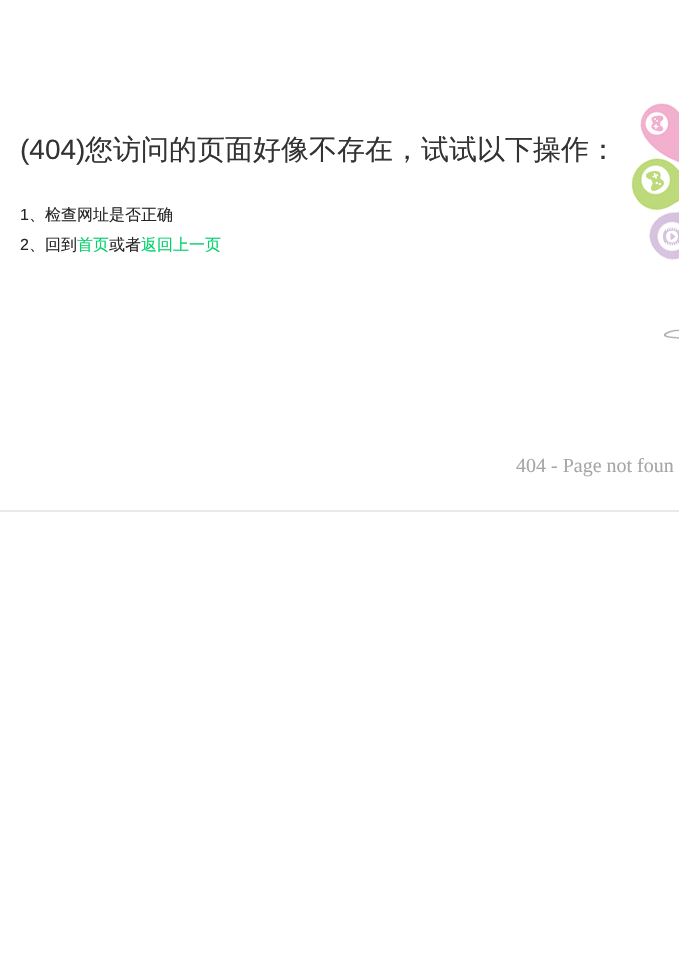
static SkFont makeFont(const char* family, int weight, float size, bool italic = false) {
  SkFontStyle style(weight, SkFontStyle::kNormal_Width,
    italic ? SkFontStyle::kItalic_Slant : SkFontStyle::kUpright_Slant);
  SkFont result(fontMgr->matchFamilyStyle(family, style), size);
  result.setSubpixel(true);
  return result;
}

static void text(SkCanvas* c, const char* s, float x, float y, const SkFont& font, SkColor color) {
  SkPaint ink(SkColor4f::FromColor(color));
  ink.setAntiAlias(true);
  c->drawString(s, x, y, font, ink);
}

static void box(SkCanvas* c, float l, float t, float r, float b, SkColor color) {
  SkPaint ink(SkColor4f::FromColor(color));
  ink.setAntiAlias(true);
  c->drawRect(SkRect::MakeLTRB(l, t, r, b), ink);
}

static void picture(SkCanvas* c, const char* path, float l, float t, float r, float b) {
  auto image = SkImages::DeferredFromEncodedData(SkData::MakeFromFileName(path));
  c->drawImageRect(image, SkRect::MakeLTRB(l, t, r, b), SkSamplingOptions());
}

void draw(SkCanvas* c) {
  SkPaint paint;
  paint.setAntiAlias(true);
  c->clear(0xffffffff);
  picture(c, "img_01.png", 631, 103, 679, 339);
  SkFont face1 = makeFont("Liberation Sans", 400, 28);
  text(c, "(404)", 20, 159, face1, 0xff333333);
  SkFont face2 = makeFont("WenQuanYi Zen Hei", 500, 28);
  text(c, "您访问的页面好像不存在，试试以下操作：", 85, 159, face2, 0xff333333);
  SkFont face3 = makeFont("Liberation Sans", 400, 16);
  text(c, "1", 20, 220, face3, 0xff262626);
  SkFont face4 = makeFont("WenQuanYi Zen Hei", 500, 16);
  text(c, "、检查网址是否正确", 29, 220, face4, 0xff262626);
  text(c, "2", 20, 250, face3, 0xff262626);
  text(c, "、回到", 29, 250, face4, 0xff262626);
  text(c, "首页", 77, 250, face4, 0xff00d16a);
  text(c, "或者", 109, 250, face4, 0xff262626);
  text(c, "返回上一页", 141, 250, face4, 0xff00d16a);
  box(c, 0, 510, 679, 512, 0xffe9e9e9);
  SkFont face5 = makeFont("Liberation Serif", 400, 20);
  text(c, "404 - Page not foun", 516, 472, face5, 0xffa6a6a6);
}
